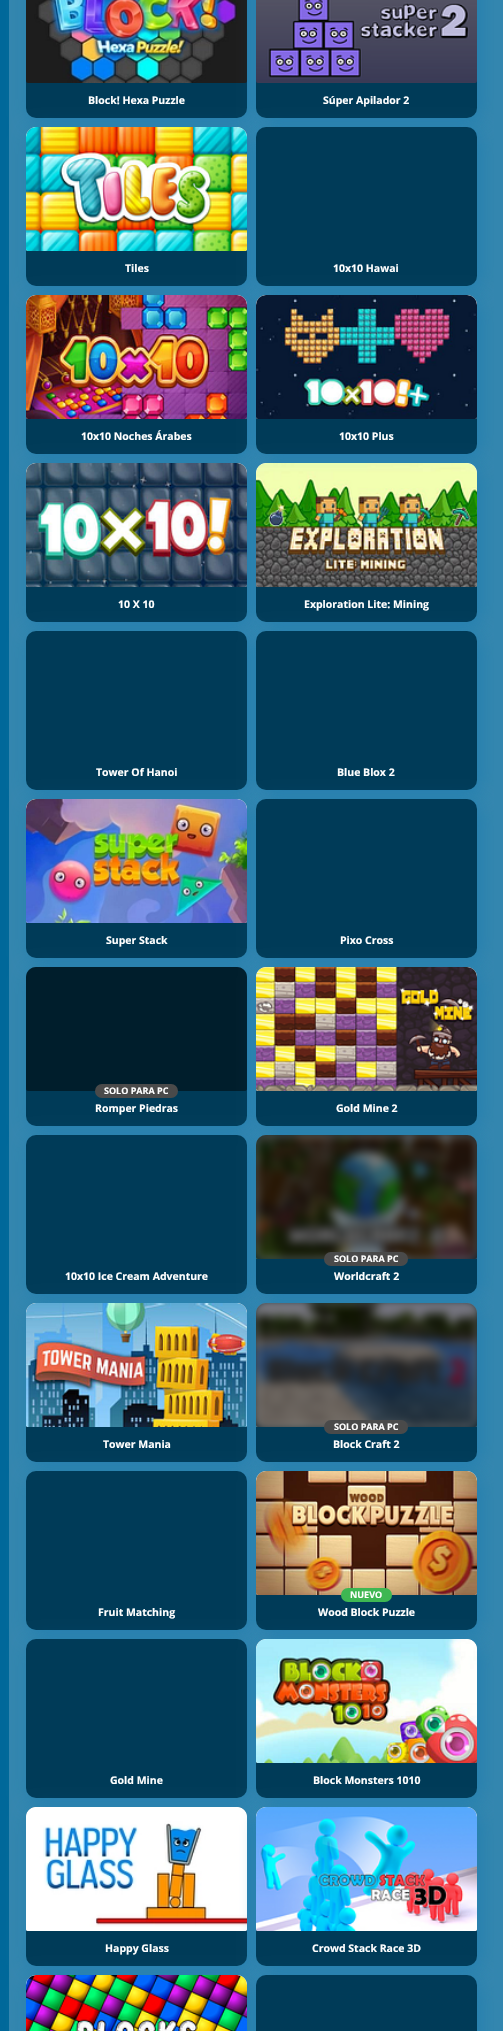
static SkFont makeFont(const char* family, int weight, float size, bool italic = false) {
  SkFontStyle style(weight, SkFontStyle::kNormal_Width,
    italic ? SkFontStyle::kItalic_Slant : SkFontStyle::kUpright_Slant);
  SkFont result(fontMgr->matchFamilyStyle(family, style), size);
  result.setSubpixel(true);
  return result;
}

static void text(SkCanvas* c, const char* s, float x, float y, const SkFont& font, SkColor color) {
  SkPaint ink(SkColor4f::FromColor(color));
  ink.setAntiAlias(true);
  c->drawString(s, x, y, font, ink);
}

static void box(SkCanvas* c, float l, float t, float r, float b, SkColor color) {
  SkPaint ink(SkColor4f::FromColor(color));
  ink.setAntiAlias(true);
  c->drawRect(SkRect::MakeLTRB(l, t, r, b), ink);
}

static void roundBox(SkCanvas* c, float l, float t, float r, float b, float radius, SkColor color) {
  SkPaint ink(SkColor4f::FromColor(color));
  ink.setAntiAlias(true);
  c->drawRoundRect(SkRect::MakeLTRB(l, t, r, b), radius, radius, ink);
}

static void picture(SkCanvas* c, const char* path, float l, float t, float r, float b) {
  auto image = SkImages::DeferredFromEncodedData(SkData::MakeFromFileName(path));
  c->drawImageRect(image, SkRect::MakeLTRB(l, t, r, b), SkSamplingOptions());
}

void draw(SkCanvas* c) {
  SkPaint paint;
  paint.setAntiAlias(true);
  c->clear(0xff00689a);
  box(c, 9, 0, 494, 2031, 0xff3386ae);
  paint.setColor(0x801276af);
  paint.setMaskFilter(SkMaskFilter::MakeBlur(kNormal_SkBlurStyle, 10));
  c->drawRoundRect(SkRect::MakeLTRB(30, -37, 251, 122), 10, 10, paint);
  paint.setMaskFilter(nullptr);
  roundBox(c, 26, -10, 247, 118, 10, 0xff003b58);
  picture(c, "img_01.png", 26, 0, 247, 83);
  SkFont face1 = makeFont("Open Sans", 700, 10.5f);
  text(c, "Block! Hexa Puzzle", 88, 104, face1, 0xffffffff);
  paint.setMaskFilter(SkMaskFilter::MakeBlur(kNormal_SkBlurStyle, 10));
  c->drawRoundRect(SkRect::MakeLTRB(260, -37, 481, 122), 10, 10, paint);
  paint.setMaskFilter(nullptr);
  roundBox(c, 256, -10, 477, 118, 10, 0xff003b58);
  picture(c, "img_02.png", 256, 0, 477, 83);
  text(c, "Súper Apilador 2", 323, 104, face1, 0xffffffff);
  paint.setMaskFilter(SkMaskFilter::MakeBlur(kNormal_SkBlurStyle, 10));
  c->drawRoundRect(SkRect::MakeLTRB(30, 131, 251, 290), 10, 10, paint);
  paint.setMaskFilter(nullptr);
  roundBox(c, 26, 127, 247, 286, 10, 0xff003b58);
  paint.setColor(0xfffafafa);
  c->drawPath(SkPathBuilder().moveTo(36, 127).lineTo(237, 127).cubicTo(242.5f, 127, 247, 131.5f, 247, 137).lineTo(247, 249).cubicTo(247, 250, 246, 251, 245, 251).lineTo(28, 251).cubicTo(27, 251, 26, 250, 26, 249).lineTo(26, 137).cubicTo(26, 131.5f, 30.5f, 127, 36, 127).close().detach(), paint);
  picture(c, "img_03.png", 26, 127, 247, 251);
  text(c, "Tiles", 125, 272, face1, 0xffffffff);
  paint.setColor(0x801276af);
  paint.setMaskFilter(SkMaskFilter::MakeBlur(kNormal_SkBlurStyle, 10));
  c->drawRoundRect(SkRect::MakeLTRB(260, 131, 481, 290), 10, 10, paint);
  paint.setMaskFilter(nullptr);
  roundBox(c, 256, 127, 477, 286, 10, 0xff003b58);
  text(c, "10x10 Hawai", 333, 272, face1, 0xffffffff);
  paint.setMaskFilter(SkMaskFilter::MakeBlur(kNormal_SkBlurStyle, 10));
  c->drawRoundRect(SkRect::MakeLTRB(30, 299, 251, 458), 10, 10, paint);
  paint.setMaskFilter(nullptr);
  roundBox(c, 26, 295, 247, 454, 10, 0xff003b58);
  paint.setColor(0xfffafafa);
  c->drawPath(SkPathBuilder().moveTo(36, 295).lineTo(237, 295).cubicTo(242.5f, 295, 247, 299.5f, 247, 305).lineTo(247, 417).cubicTo(247, 418, 246, 419, 245, 419).lineTo(28, 419).cubicTo(27, 419, 26, 418, 26, 417).lineTo(26, 305).cubicTo(26, 299.5f, 30.5f, 295, 36, 295).close().detach(), paint);
  picture(c, "img_04.png", 26, 295, 247, 419);
  text(c, "10x10 Noches Árabes", 81, 440, face1, 0xffffffff);
  paint.setColor(0x801276af);
  paint.setMaskFilter(SkMaskFilter::MakeBlur(kNormal_SkBlurStyle, 10));
  c->drawRoundRect(SkRect::MakeLTRB(260, 299, 481, 458), 10, 10, paint);
  paint.setMaskFilter(nullptr);
  roundBox(c, 256, 295, 477, 454, 10, 0xff003b58);
  paint.setColor(0xfffafafa);
  c->drawPath(SkPathBuilder().moveTo(266, 295).lineTo(467, 295).cubicTo(472.5f, 295, 477, 299.5f, 477, 305).lineTo(477, 417).cubicTo(477, 418, 476, 419, 475, 419).lineTo(258, 419).cubicTo(257, 419, 256, 418, 256, 417).lineTo(256, 305).cubicTo(256, 299.5f, 260.5f, 295, 266, 295).close().detach(), paint);
  picture(c, "img_05.png", 256, 295, 477, 419);
  text(c, "10x10 Plus", 339, 440, face1, 0xffffffff);
  paint.setColor(0x801276af);
  paint.setMaskFilter(SkMaskFilter::MakeBlur(kNormal_SkBlurStyle, 10));
  c->drawRoundRect(SkRect::MakeLTRB(30, 467, 251, 626), 10, 10, paint);
  paint.setMaskFilter(nullptr);
  roundBox(c, 26, 463, 247, 622, 10, 0xff003b58);
  paint.setColor(0xfffafafa);
  c->drawPath(SkPathBuilder().moveTo(36, 463).lineTo(237, 463).cubicTo(242.5f, 463, 247, 467.5f, 247, 473).lineTo(247, 585).cubicTo(247, 586, 246, 587, 245, 587).lineTo(28, 587).cubicTo(27, 587, 26, 586, 26, 585).lineTo(26, 473).cubicTo(26, 467.5f, 30.5f, 463, 36, 463).close().detach(), paint);
  picture(c, "img_06.png", 26, 463, 247, 587);
  text(c, "10 X 10", 118, 608, face1, 0xffffffff);
  paint.setColor(0x801276af);
  paint.setMaskFilter(SkMaskFilter::MakeBlur(kNormal_SkBlurStyle, 10));
  c->drawRoundRect(SkRect::MakeLTRB(260, 467, 481, 626), 10, 10, paint);
  paint.setMaskFilter(nullptr);
  roundBox(c, 256, 463, 477, 622, 10, 0xff003b58);
  paint.setColor(0xfffafafa);
  c->drawPath(SkPathBuilder().moveTo(266, 463).lineTo(467, 463).cubicTo(472.5f, 463, 477, 467.5f, 477, 473).lineTo(477, 585).cubicTo(477, 586, 476, 587, 475, 587).lineTo(258, 587).cubicTo(257, 587, 256, 586, 256, 585).lineTo(256, 473).cubicTo(256, 467.5f, 260.5f, 463, 266, 463).close().detach(), paint);
  picture(c, "img_07.png", 256, 463, 477, 587);
  text(c, "Exploration Lite: Mining", 304, 608, face1, 0xffffffff);
  paint.setColor(0x801276af);
  paint.setMaskFilter(SkMaskFilter::MakeBlur(kNormal_SkBlurStyle, 10));
  c->drawRoundRect(SkRect::MakeLTRB(30, 635, 251, 794), 10, 10, paint);
  paint.setMaskFilter(nullptr);
  roundBox(c, 26, 631, 247, 790, 10, 0xff003b58);
  text(c, "Tower Of Hanoi", 96, 776, face1, 0xffffffff);
  paint.setMaskFilter(SkMaskFilter::MakeBlur(kNormal_SkBlurStyle, 10));
  c->drawRoundRect(SkRect::MakeLTRB(260, 635, 481, 794), 10, 10, paint);
  paint.setMaskFilter(nullptr);
  roundBox(c, 256, 631, 477, 790, 10, 0xff003b58);
  text(c, "Blue Blox 2", 337, 776, face1, 0xffffffff);
  paint.setMaskFilter(SkMaskFilter::MakeBlur(kNormal_SkBlurStyle, 10));
  c->drawRoundRect(SkRect::MakeLTRB(30, 803, 251, 962), 10, 10, paint);
  paint.setMaskFilter(nullptr);
  roundBox(c, 26, 799, 247, 958, 10, 0xff003b58);
  paint.setColor(0xfffafafa);
  c->drawPath(SkPathBuilder().moveTo(36, 799).lineTo(237, 799).cubicTo(242.5f, 799, 247, 803.5f, 247, 809).lineTo(247, 921).cubicTo(247, 922, 246, 923, 245, 923).lineTo(28, 923).cubicTo(27, 923, 26, 922, 26, 921).lineTo(26, 809).cubicTo(26, 803.5f, 30.5f, 799, 36, 799).close().detach(), paint);
  picture(c, "img_08.png", 26, 799, 247, 923);
  text(c, "Super Stack", 106, 944, face1, 0xffffffff);
  paint.setColor(0x801276af);
  paint.setMaskFilter(SkMaskFilter::MakeBlur(kNormal_SkBlurStyle, 10));
  c->drawRoundRect(SkRect::MakeLTRB(260, 803, 481, 962), 10, 10, paint);
  paint.setMaskFilter(nullptr);
  roundBox(c, 256, 799, 477, 958, 10, 0xff003b58);
  text(c, "Pixo Cross", 340, 944, face1, 0xffffffff);
  paint.setMaskFilter(SkMaskFilter::MakeBlur(kNormal_SkBlurStyle, 10));
  c->drawRoundRect(SkRect::MakeLTRB(30, 971, 251, 1130), 10, 10, paint);
  paint.setMaskFilter(nullptr);
  roundBox(c, 26, 967, 247, 1126, 10, 0xff003b58);
  paint.setColor(0x80000000);
  c->drawPath(SkPathBuilder().moveTo(36, 967).lineTo(237, 967).cubicTo(242.5f, 967, 247, 971.5f, 247, 977).lineTo(247, 1089).cubicTo(247, 1090, 246, 1091, 245, 1091).lineTo(28, 1091).cubicTo(27, 1091, 26, 1090, 26, 1089).lineTo(26, 977).cubicTo(26, 971.5f, 30.5f, 967, 36, 967).close().detach(), paint);
  roundBox(c, 95, 1084, 178, 1098, 7, 0xff4a4a4a);
  SkFont face2 = makeFont("Open Sans", 700, 9);
  text(c, "SOLO PARA PC", 104, 1094, face2, 0xffffffff);
  text(c, "Romper Piedras", 95, 1112, face1, 0xffffffff);
  paint.setColor(0x801276af);
  paint.setMaskFilter(SkMaskFilter::MakeBlur(kNormal_SkBlurStyle, 10));
  c->drawRoundRect(SkRect::MakeLTRB(260, 971, 481, 1130), 10, 10, paint);
  paint.setMaskFilter(nullptr);
  roundBox(c, 256, 967, 477, 1126, 10, 0xff003b58);
  paint.setColor(0xfffafafa);
  c->drawPath(SkPathBuilder().moveTo(266, 967).lineTo(467, 967).cubicTo(472.5f, 967, 477, 971.5f, 477, 977).lineTo(477, 1089).cubicTo(477, 1090, 476, 1091, 475, 1091).lineTo(258, 1091).cubicTo(257, 1091, 256, 1090, 256, 1089).lineTo(256, 977).cubicTo(256, 971.5f, 260.5f, 967, 266, 967).close().detach(), paint);
  picture(c, "img_09.png", 256, 967, 477, 1091);
  text(c, "Gold Mine 2", 336, 1112, face1, 0xffffffff);
  paint.setColor(0x801276af);
  paint.setMaskFilter(SkMaskFilter::MakeBlur(kNormal_SkBlurStyle, 10));
  c->drawRoundRect(SkRect::MakeLTRB(30, 1139, 251, 1298), 10, 10, paint);
  paint.setMaskFilter(nullptr);
  roundBox(c, 26, 1135, 247, 1294, 10, 0xff003b58);
  text(c, "10x10 Ice Cream Adventure", 65, 1280, face1, 0xffffffff);
  paint.setMaskFilter(SkMaskFilter::MakeBlur(kNormal_SkBlurStyle, 10));
  c->drawRoundRect(SkRect::MakeLTRB(260, 1139, 481, 1298), 10, 10, paint);
  paint.setMaskFilter(nullptr);
  roundBox(c, 256, 1135, 477, 1294, 10, 0xff003b58);
  c->save();
  c->clipRect(SkRect::MakeLTRB(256, 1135, 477, 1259));
  c->clipPath(SkPathBuilder().moveTo(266, 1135).lineTo(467, 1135).cubicTo(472.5f, 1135, 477, 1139.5f, 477, 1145).lineTo(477, 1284).cubicTo(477, 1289.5f, 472.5f, 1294, 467, 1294).lineTo(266, 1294).cubicTo(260.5f, 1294, 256, 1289.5f, 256, 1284).lineTo(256, 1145).cubicTo(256, 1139.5f, 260.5f, 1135, 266, 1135).close().detach(), true);
  paint.setColor(0xfffafafa);
  paint.setMaskFilter(SkMaskFilter::MakeBlur(kNormal_SkBlurStyle, 5));
  c->drawRoundRect(SkRect::MakeLTRB(256, 1135, 477, 1259), 9, 9, paint);
  paint.setMaskFilter(nullptr);
  c->restore();
  picture(c, "img_10.png", 256, 1135, 477, 1259);
  paint.setColor(0x80000000);
  c->drawPath(SkPathBuilder().moveTo(266, 1135).lineTo(467, 1135).cubicTo(472.5f, 1135, 477, 1139.5f, 477, 1145).lineTo(477, 1257).cubicTo(477, 1258, 476, 1259, 475, 1259).lineTo(258, 1259).cubicTo(257, 1259, 256, 1258, 256, 1257).lineTo(256, 1145).cubicTo(256, 1139.5f, 260.5f, 1135, 266, 1135).close().detach(), paint);
  roundBox(c, 324, 1252, 408, 1266, 7, 0xff4a4a4a);
  text(c, "SOLO PARA PC", 334, 1262, face2, 0xffffffff);
  text(c, "Worldcraft 2", 334, 1280, face1, 0xffffffff);
  paint.setColor(0x801276af);
  paint.setMaskFilter(SkMaskFilter::MakeBlur(kNormal_SkBlurStyle, 10));
  c->drawRoundRect(SkRect::MakeLTRB(30, 1307, 251, 1466), 10, 10, paint);
  paint.setMaskFilter(nullptr);
  roundBox(c, 26, 1303, 247, 1462, 10, 0xff003b58);
  paint.setColor(0xfffafafa);
  c->drawPath(SkPathBuilder().moveTo(36, 1303).lineTo(237, 1303).cubicTo(242.5f, 1303, 247, 1307.5f, 247, 1313).lineTo(247, 1425).cubicTo(247, 1426, 246, 1427, 245, 1427).lineTo(28, 1427).cubicTo(27, 1427, 26, 1426, 26, 1425).lineTo(26, 1313).cubicTo(26, 1307.5f, 30.5f, 1303, 36, 1303).close().detach(), paint);
  picture(c, "img_11.png", 26, 1303, 247, 1427);
  text(c, "Tower Mania", 103, 1448, face1, 0xffffffff);
  paint.setColor(0x801276af);
  paint.setMaskFilter(SkMaskFilter::MakeBlur(kNormal_SkBlurStyle, 10));
  c->drawRoundRect(SkRect::MakeLTRB(260, 1307, 481, 1466), 10, 10, paint);
  paint.setMaskFilter(nullptr);
  roundBox(c, 256, 1303, 477, 1462, 10, 0xff003b58);
  c->save();
  c->clipRect(SkRect::MakeLTRB(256, 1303, 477, 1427));
  c->clipPath(SkPathBuilder().moveTo(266, 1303).lineTo(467, 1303).cubicTo(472.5f, 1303, 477, 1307.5f, 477, 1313).lineTo(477, 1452).cubicTo(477, 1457.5f, 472.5f, 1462, 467, 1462).lineTo(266, 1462).cubicTo(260.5f, 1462, 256, 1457.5f, 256, 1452).lineTo(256, 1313).cubicTo(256, 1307.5f, 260.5f, 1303, 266, 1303).close().detach(), true);
  paint.setColor(0xfffafafa);
  paint.setMaskFilter(SkMaskFilter::MakeBlur(kNormal_SkBlurStyle, 5));
  c->drawRoundRect(SkRect::MakeLTRB(256, 1303, 477, 1427), 9, 9, paint);
  paint.setMaskFilter(nullptr);
  c->restore();
  picture(c, "img_12.png", 256, 1303, 477, 1427);
  paint.setColor(0x80000000);
  c->drawPath(SkPathBuilder().moveTo(266, 1303).lineTo(467, 1303).cubicTo(472.5f, 1303, 477, 1307.5f, 477, 1313).lineTo(477, 1425).cubicTo(477, 1426, 476, 1427, 475, 1427).lineTo(258, 1427).cubicTo(257, 1427, 256, 1426, 256, 1425).lineTo(256, 1313).cubicTo(256, 1307.5f, 260.5f, 1303, 266, 1303).close().detach(), paint);
  roundBox(c, 324, 1420, 408, 1434, 7, 0xff4a4a4a);
  text(c, "SOLO PARA PC", 334, 1430, face2, 0xffffffff);
  text(c, "Block Craft 2", 333, 1448, face1, 0xffffffff);
  paint.setColor(0x801276af);
  paint.setMaskFilter(SkMaskFilter::MakeBlur(kNormal_SkBlurStyle, 10));
  c->drawRoundRect(SkRect::MakeLTRB(30, 1475, 251, 1634), 10, 10, paint);
  paint.setMaskFilter(nullptr);
  roundBox(c, 26, 1471, 247, 1630, 10, 0xff003b58);
  text(c, "Fruit Matching", 98, 1616, face1, 0xffffffff);
  paint.setMaskFilter(SkMaskFilter::MakeBlur(kNormal_SkBlurStyle, 10));
  c->drawRoundRect(SkRect::MakeLTRB(260, 1475, 481, 1634), 10, 10, paint);
  paint.setMaskFilter(nullptr);
  roundBox(c, 256, 1471, 477, 1630, 10, 0xff003b58);
  paint.setColor(0xfffafafa);
  c->drawPath(SkPathBuilder().moveTo(266, 1471).lineTo(467, 1471).cubicTo(472.5f, 1471, 477, 1475.5f, 477, 1481).lineTo(477, 1593).cubicTo(477, 1594, 476, 1595, 475, 1595).lineTo(258, 1595).cubicTo(257, 1595, 256, 1594, 256, 1593).lineTo(256, 1481).cubicTo(256, 1475.5f, 260.5f, 1471, 266, 1471).close().detach(), paint);
  picture(c, "img_13.png", 256, 1471, 477, 1595);
  roundBox(c, 341, 1588, 392, 1602, 7, 0xff3eb752);
  text(c, "NUEVO", 350, 1598, face2, 0xffffffff);
  text(c, "Wood Block Puzzle", 318, 1616, face1, 0xffffffff);
  paint.setColor(0x801276af);
  paint.setMaskFilter(SkMaskFilter::MakeBlur(kNormal_SkBlurStyle, 10));
  c->drawRoundRect(SkRect::MakeLTRB(30, 1643, 251, 1802), 10, 10, paint);
  paint.setMaskFilter(nullptr);
  roundBox(c, 26, 1639, 247, 1798, 10, 0xff003b58);
  text(c, "Gold Mine", 110, 1784, face1, 0xffffffff);
  paint.setMaskFilter(SkMaskFilter::MakeBlur(kNormal_SkBlurStyle, 10));
  c->drawRoundRect(SkRect::MakeLTRB(260, 1643, 481, 1802), 10, 10, paint);
  paint.setMaskFilter(nullptr);
  roundBox(c, 256, 1639, 477, 1798, 10, 0xff003b58);
  paint.setColor(0xfffafafa);
  c->drawPath(SkPathBuilder().moveTo(266, 1639).lineTo(467, 1639).cubicTo(472.5f, 1639, 477, 1643.5f, 477, 1649).lineTo(477, 1761).cubicTo(477, 1762, 476, 1763, 475, 1763).lineTo(258, 1763).cubicTo(257, 1763, 256, 1762, 256, 1761).lineTo(256, 1649).cubicTo(256, 1643.5f, 260.5f, 1639, 266, 1639).close().detach(), paint);
  picture(c, "img_14.png", 256, 1639, 477, 1763);
  text(c, "Block Monsters 1010", 313, 1784, face1, 0xffffffff);
  paint.setColor(0x801276af);
  paint.setMaskFilter(SkMaskFilter::MakeBlur(kNormal_SkBlurStyle, 10));
  c->drawRoundRect(SkRect::MakeLTRB(30, 1811, 251, 1970), 10, 10, paint);
  paint.setMaskFilter(nullptr);
  roundBox(c, 26, 1807, 247, 1966, 10, 0xff003b58);
  paint.setColor(0xfffafafa);
  c->drawPath(SkPathBuilder().moveTo(36, 1807).lineTo(237, 1807).cubicTo(242.5f, 1807, 247, 1811.5f, 247, 1817).lineTo(247, 1929).cubicTo(247, 1930, 246, 1931, 245, 1931).lineTo(28, 1931).cubicTo(27, 1931, 26, 1930, 26, 1929).lineTo(26, 1817).cubicTo(26, 1811.5f, 30.5f, 1807, 36, 1807).close().detach(), paint);
  picture(c, "img_15.png", 26, 1807, 247, 1931);
  text(c, "Happy Glass", 105, 1952, face1, 0xffffffff);
  paint.setColor(0x801276af);
  paint.setMaskFilter(SkMaskFilter::MakeBlur(kNormal_SkBlurStyle, 10));
  c->drawRoundRect(SkRect::MakeLTRB(260, 1811, 481, 1970), 10, 10, paint);
  paint.setMaskFilter(nullptr);
  roundBox(c, 256, 1807, 477, 1966, 10, 0xff003b58);
  paint.setColor(0xfffafafa);
  c->drawPath(SkPathBuilder().moveTo(266, 1807).lineTo(467, 1807).cubicTo(472.5f, 1807, 477, 1811.5f, 477, 1817).lineTo(477, 1929).cubicTo(477, 1930, 476, 1931, 475, 1931).lineTo(258, 1931).cubicTo(257, 1931, 256, 1930, 256, 1929).lineTo(256, 1817).cubicTo(256, 1811.5f, 260.5f, 1807, 266, 1807).close().detach(), paint);
  picture(c, "img_16.png", 256, 1807, 477, 1931);
  text(c, "Crowd Stack Race 3D", 312, 1952, face1, 0xffffffff);
  paint.setColor(0x801276af);
  paint.setMaskFilter(SkMaskFilter::MakeBlur(kNormal_SkBlurStyle, 10));
  c->drawRoundRect(SkRect::MakeLTRB(30, 1979, 251, 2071), 10, 10, paint);
  paint.setMaskFilter(nullptr);
  paint.setColor(0xfffafafa);
  c->drawPath(SkPathBuilder().moveTo(36, 1975).lineTo(237, 1975).cubicTo(242.5f, 1975, 247, 1979.5f, 247, 1985).lineTo(247, 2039).cubicTo(247, 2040, 246, 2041, 245, 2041).lineTo(28, 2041).cubicTo(27, 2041, 26, 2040, 26, 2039).lineTo(26, 1985).cubicTo(26, 1979.5f, 30.5f, 1975, 36, 1975).close().detach(), paint);
  picture(c, "img_17.png", 26, 1975, 247, 2031);
  paint.setColor(0x801276af);
  paint.setMaskFilter(SkMaskFilter::MakeBlur(kNormal_SkBlurStyle, 10));
  c->drawRoundRect(SkRect::MakeLTRB(260, 1979, 481, 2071), 10, 10, paint);
  paint.setMaskFilter(nullptr);
  roundBox(c, 256, 1975, 477, 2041, 10, 0xff003b58);
  box(c, 494, 0, 503, 2031, 0xff3386af);
}
